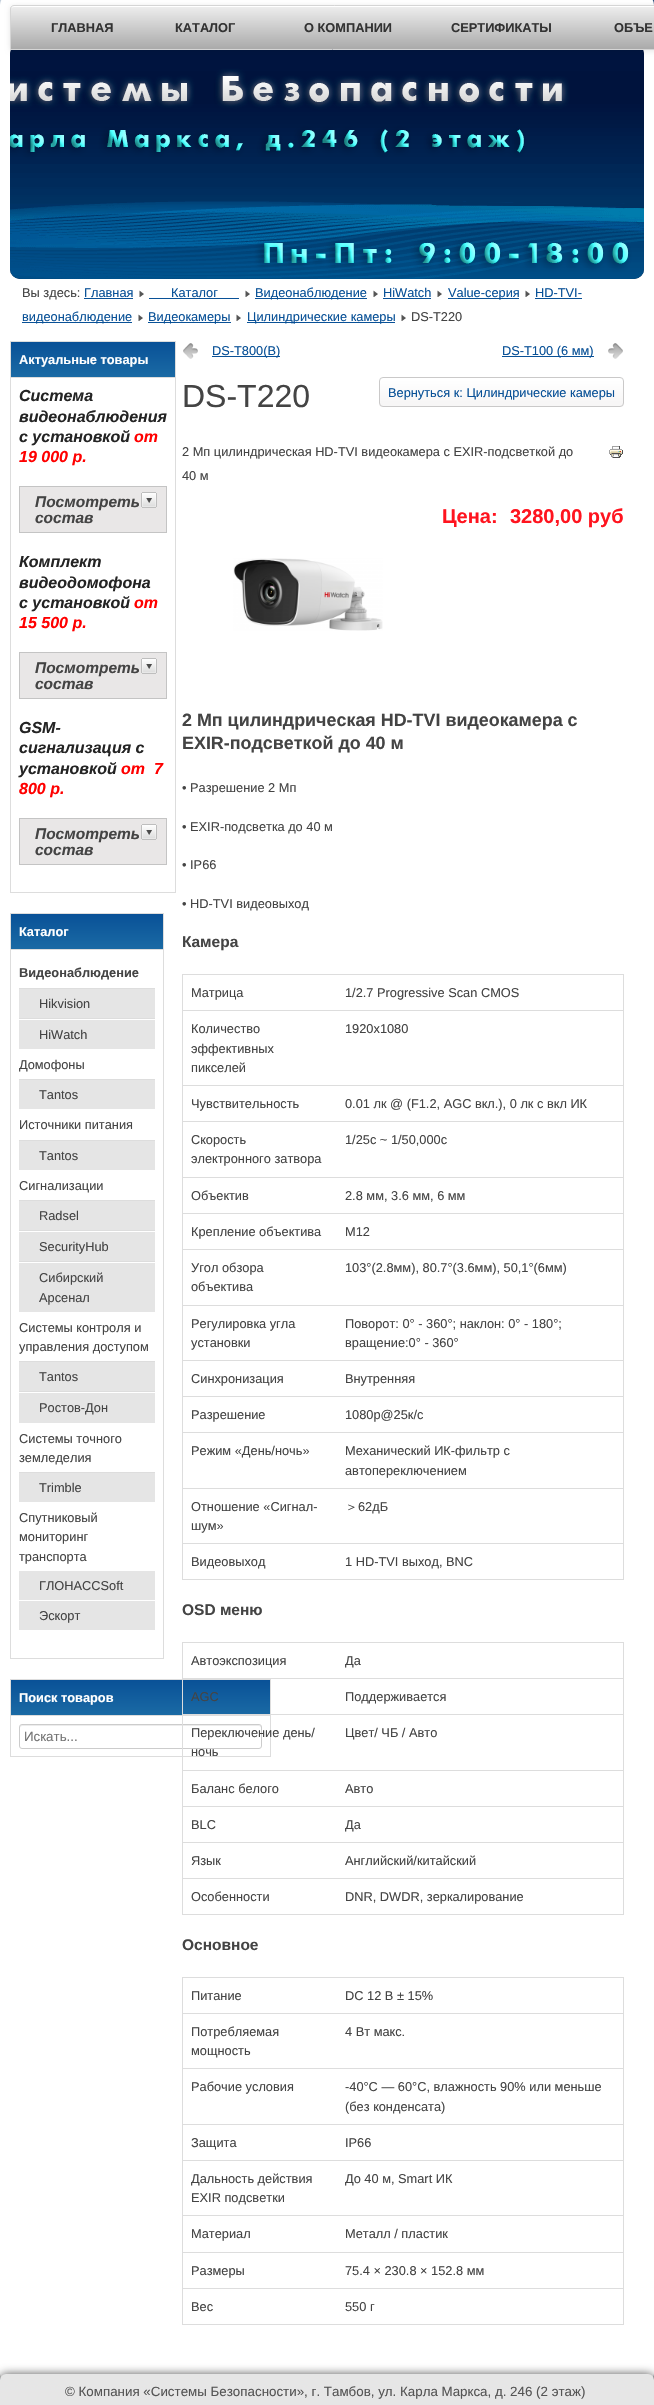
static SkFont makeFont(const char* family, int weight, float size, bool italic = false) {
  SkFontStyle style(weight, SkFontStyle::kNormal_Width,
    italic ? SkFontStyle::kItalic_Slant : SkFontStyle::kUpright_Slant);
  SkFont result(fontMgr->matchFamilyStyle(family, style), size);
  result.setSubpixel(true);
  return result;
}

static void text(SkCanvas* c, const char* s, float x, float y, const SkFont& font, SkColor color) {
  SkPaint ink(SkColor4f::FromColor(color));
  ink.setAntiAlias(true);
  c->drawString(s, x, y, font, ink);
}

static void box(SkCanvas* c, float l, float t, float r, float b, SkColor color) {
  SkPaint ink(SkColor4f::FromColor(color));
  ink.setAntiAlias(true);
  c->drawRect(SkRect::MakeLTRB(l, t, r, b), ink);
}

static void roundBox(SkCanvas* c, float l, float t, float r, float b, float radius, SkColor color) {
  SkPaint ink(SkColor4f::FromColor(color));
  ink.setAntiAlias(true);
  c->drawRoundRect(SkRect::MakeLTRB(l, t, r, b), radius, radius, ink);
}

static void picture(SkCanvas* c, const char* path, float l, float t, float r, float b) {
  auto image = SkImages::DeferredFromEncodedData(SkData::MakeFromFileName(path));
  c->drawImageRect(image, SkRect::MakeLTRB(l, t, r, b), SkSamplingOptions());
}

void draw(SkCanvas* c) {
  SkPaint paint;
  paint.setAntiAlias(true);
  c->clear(0xffffffff);
  {
    const SkColor colors[] = {0xffffffff, 0xff0c3a6d, 0xffffffff, 0xff0c3a6d, 0xffffffff, 0xff0c3a6d};
    const float stops[] = {0, 0.33f, 0.33f, 0.67f, 0.67f, 1};
    const SkPoint ends[] = {{-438, 1967}, {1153, 376}};
    paint.setShader(SkGradientShader::MakeLinear(ends, colors, stops, 6, SkTileMode::kClamp));
    paint.setAlpha(255);
  }
  c->drawRect(SkRect::MakeLTRB(0, 0, 654, 2380), paint);
  paint.setShader(nullptr);
  paint.setColor(0xff555555);
  paint.setMaskFilter(SkMaskFilter::MakeBlur(kNormal_SkBlurStyle, 5));
  c->drawRoundRect(SkRect::MakeLTRB(0, 15, 654, 2404), 10, 10, paint);
  paint.setMaskFilter(nullptr);
  roundBox(c, 0, -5, 654, 2384, 10, 0xffffffff);
  roundBox(c, 10, 44, 644, 279, 10, 0xff0c1a3e);
  picture(c, "img_01.png", 10, 50, 644, 279);
  paint.setColor(0x1a000000);
  paint.setMaskFilter(SkMaskFilter::MakeBlur(kNormal_SkBlurStyle, 2.5f));
  c->drawRoundRect(SkRect::MakeLTRB(10, 6, 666, 51), 4, 4, paint);
  paint.setMaskFilter(nullptr);
  c->save();
  c->clipPath(SkPathBuilder().moveTo(14, 5).lineTo(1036, 5).cubicTo(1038, 5, 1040, 7, 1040, 9).lineTo(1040, 50).lineTo(10, 50).lineTo(10, 9).cubicTo(10, 7, 12, 5, 14, 5).close().detach(), true);
  {
    const SkColor colors[] = {0xffeeeeee, 0xffaaaaaa};
    const float stops[] = {0, 1};
    const SkPoint ends[] = {{525, 6}, {525, 49}};
    paint.setShader(SkGradientShader::MakeLinear(ends, colors, stops, 2, SkTileMode::kClamp));
    paint.setAlpha(255);
  }
  c->drawRect(SkRect::MakeLTRB(10, 6, 654, 49), paint);
  c->restore();
  paint.setShader(nullptr);
  paint.setColor(0xffffffff);
  c->drawPath(SkPathBuilder().moveTo(14, 7).lineTo(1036, 7).cubicTo(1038, 7, 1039, 8, 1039, 10).cubicTo(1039, 8, 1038, 6, 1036, 6).lineTo(14, 6).cubicTo(12, 6, 11, 8, 11, 10).cubicTo(11, 8, 12, 7, 14, 7).close().detach(), paint);
  paint.setStyle(SkPaint::kStroke_Style);
  paint.setStrokeWidth(1);
  paint.setColor(0xffd5d5d5);
  c->drawPath(SkPathBuilder().moveTo(14, 5.5f).lineTo(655, 5.5f).cubicTo(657, 5.5f, 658.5f, 7, 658.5f, 9).lineTo(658.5f, 49.5f).lineTo(10.5f, 49.5f).lineTo(10.5f, 9).cubicTo(10.5f, 7, 12, 5.5f, 14, 5.5f).close().detach(), paint);
  SkFont face1 = makeFont("Liberation Sans", 700, 12.8f);
  text(c, "ГЛАВНАЯ", 51, 32, face1, 0xff333333);
  text(c, "КАТАЛОГ", 175, 32, face1, 0xff333333);
  text(c, "О КОМПАНИИ", 304, 32, face1, 0xff333333);
  text(c, "СЕРТИФИКАТЫ", 451, 32, face1, 0xff333333);
  text(c, "ОБЪЕ", 614, 32, face1, 0xff333333);
  SkFont face2 = makeFont("Liberation Sans", 400, 12.8f);
  text(c, "Вы здесь:", 22, 297, face2, 0xff444444);
  text(c, "Главная", 84, 297, face2, 0xff095197);
  box(c, 84, 298, 133, 299, 0xff095197);
  picture(c, "img_02.png", 139, 290, 144, 297);
  text(c, "Каталог", 171, 297, face2, 0xff095197);
  box(c, 149, 298, 239, 299, 0xff095197);
  picture(c, "img_02.png", 245, 290, 250, 297);
  box(c, 255, 298, 367, 299, 0xff095197);
  text(c, "Видеонаблюдение", 255, 297, face2, 0xff095197);
  picture(c, "img_02.png", 373, 290, 378, 297);
  text(c, "HiWatch", 383, 297, face2, 0xff095197);
  box(c, 383, 298, 431, 299, 0xff095197);
  picture(c, "img_02.png", 437, 290, 442, 297);
  box(c, 448, 298, 519, 299, 0xff095197);
  text(c, "Value-серия", 448, 297, face2, 0xff095197);
  picture(c, "img_02.png", 525, 290, 530, 297);
  text(c, "HD-TVI-", 535, 297, face2, 0xff095197);
  box(c, 535, 298, 582, 299, 0xff095197);
  box(c, 22, 322, 132, 323, 0xff095197);
  text(c, "видеонаблюдение", 22, 321, face2, 0xff095197);
  picture(c, "img_02.png", 138, 314, 143, 321);
  box(c, 148, 322, 231, 323, 0xff095197);
  text(c, "Видеокамеры", 148, 321, face2, 0xff095197);
  picture(c, "img_02.png", 236, 314, 241, 321);
  box(c, 247, 322, 395, 323, 0xff095197);
  text(c, "Цилиндрические камеры", 247, 321, face2, 0xff095197);
  picture(c, "img_02.png", 401, 314, 406, 321);
  text(c, "DS-T220", 411, 321, face2, 0xff444444);
  box(c, 10, 341, 176, 342, 0xffdddddd);
  box(c, 175, 341, 176, 893, 0xffdddddd);
  box(c, 10, 892, 176, 893, 0xffdddddd);
  box(c, 10, 341, 11, 893, 0xffdddddd);
  paint.setStyle(SkPaint::kFill_Style);
  {
    const SkColor colors[] = {0xff095197, 0xff1b6ba5};
    const float stops[] = {0, 1};
    const SkPoint ends[] = {{93, 342}, {93, 378}};
    paint.setShader(SkGradientShader::MakeLinear(ends, colors, stops, 2, SkTileMode::kClamp));
    paint.setAlpha(255);
  }
  c->drawRect(SkRect::MakeLTRB(11, 342, 175, 377), paint);
  text(c, "Актуальные товары", 19, 364, face1, 0xffffffff);
  box(c, 10, 377, 176, 378, 0xffdddddd);
  SkFont face3 = makeFont("Liberation Sans", 700, 16, true);
  text(c, "Система", 19, 401, face3, 0xff242424);
  text(c, "видеонаблюдения", 19, 422, face3, 0xff242424);
  text(c, "с установкой", 19, 442, face3, 0xff242424);
  text(c, "от", 134, 442, face3, 0xffff0000);
  text(c, "19 000 р.", 19, 462, face3, 0xffff0000);
  box(c, 20, 487, 166, 532, 0xffe9e7e7);
  picture(c, "img_03.png", 141, 492, 157, 508);
  paint.setStyle(SkPaint::kStroke_Style);
  paint.setShader(nullptr);
  paint.setColor(0xffc4c4c4);
  c->drawRect(SkRect::MakeLTRB(19.5f, 486.5f, 166.5f, 532.5f), paint);
  SkFont face4 = makeFont("Liberation Sans", 700, 15.5f, true);
  text(c, "Посмотреть", 35, 507, face4, 0xff444444);
  text(c, "состав", 35, 523, face4, 0xff444444);
  text(c, "Комплект", 19, 567, face3, 0xff242424);
  text(c, "видеодомофона", 19, 588, face3, 0xff242424);
  text(c, "с установкой", 19, 608, face3, 0xff242424);
  text(c, "от", 134, 608, face3, 0xffff0000);
  text(c, "15 500 р.", 19, 628, face3, 0xffff0000);
  box(c, 20, 653, 166, 698, 0xffe9e7e7);
  picture(c, "img_03.png", 141, 658, 157, 674);
  c->drawRect(SkRect::MakeLTRB(19.5f, 652.5f, 166.5f, 698.5f), paint);
  text(c, "Посмотреть", 35, 673, face4, 0xff444444);
  text(c, "состав", 35, 689, face4, 0xff444444);
  text(c, "GSM-", 19, 733, face3, 0xff242424);
  text(c, "сигнализация с", 19, 753, face3, 0xff242424);
  text(c, "установкой", 19, 774, face3, 0xff242424);
  text(c, "от  7", 121, 774, face3, 0xffff0000);
  text(c, "800 р.", 19, 794, face3, 0xffff0000);
  box(c, 20, 819, 166, 864, 0xffe9e7e7);
  picture(c, "img_03.png", 141, 824, 157, 840);
  c->drawRect(SkRect::MakeLTRB(19.5f, 818.5f, 166.5f, 864.5f), paint);
  text(c, "Посмотреть", 35, 839, face4, 0xff444444);
  text(c, "состав", 35, 855, face4, 0xff444444);
  box(c, 10, 913, 164, 914, 0xffdddddd);
  box(c, 163, 913, 164, 1659, 0xffdddddd);
  box(c, 10, 1658, 164, 1659, 0xffdddddd);
  box(c, 10, 913, 11, 1659, 0xffdddddd);
  paint.setStyle(SkPaint::kFill_Style);
  {
    const SkColor colors[] = {0xff095197, 0xff1b6ba5};
    const float stops[] = {0, 1};
    const SkPoint ends[] = {{87, 914}, {87, 950}};
    paint.setShader(SkGradientShader::MakeLinear(ends, colors, stops, 2, SkTileMode::kClamp));
    paint.setAlpha(255);
  }
  c->drawRect(SkRect::MakeLTRB(11, 914, 163, 949), paint);
  text(c, "Каталог", 19, 936, face1, 0xffffffff);
  box(c, 10, 949, 164, 950, 0xffdddddd);
  box(c, 19, 988, 155, 989, 0xffdddddd);
  text(c, "Видеонаблюдение", 19, 977, face1, 0xff444444);
  box(c, 19, 989, 155, 1018, 0xffe5e5e5);
  box(c, 19, 1018, 155, 1019, 0xffdddddd);
  text(c, "Hikvision", 39, 1008, face2, 0xff444444);
  box(c, 19, 1020, 155, 1049, 0xffe5e5e5);
  text(c, "HiWatch", 39, 1039, face2, 0xff444444);
  box(c, 19, 1079, 155, 1080, 0xffdddddd);
  text(c, "Домофоны", 19, 1069, face2, 0xff444444);
  box(c, 19, 1080, 155, 1109, 0xffe5e5e5);
  text(c, "Tantos", 39, 1099, face2, 0xff444444);
  box(c, 19, 1140, 155, 1141, 0xffdddddd);
  text(c, "Источники питания", 19, 1129, face2, 0xff444444);
  box(c, 19, 1141, 155, 1170, 0xffe5e5e5);
  text(c, "Tantos", 39, 1160, face2, 0xff444444);
  box(c, 19, 1200, 155, 1201, 0xffdddddd);
  text(c, "Сигнализации", 19, 1190, face2, 0xff444444);
  box(c, 19, 1201, 155, 1230, 0xffe5e5e5);
  box(c, 19, 1230, 155, 1231, 0xffdddddd);
  text(c, "Radsel", 39, 1220, face2, 0xff444444);
  box(c, 19, 1232, 155, 1261, 0xffe5e5e5);
  box(c, 19, 1261, 155, 1262, 0xffdddddd);
  text(c, "SecurityHub", 39, 1251, face2, 0xff444444);
  box(c, 19, 1263, 155, 1312, 0xffe5e5e5);
  text(c, "Сибирский", 39, 1282, face2, 0xff444444);
  text(c, "Арсенал", 39, 1302, face2, 0xff444444);
  box(c, 19, 1361, 155, 1362, 0xffdddddd);
  text(c, "Системы контроля и", 19, 1332, face2, 0xff444444);
  text(c, "управления доступом", 19, 1351, face2, 0xff444444);
  box(c, 19, 1362, 155, 1391, 0xffe5e5e5);
  box(c, 19, 1391, 155, 1392, 0xffdddddd);
  text(c, "Tantos", 39, 1381, face2, 0xff444444);
  box(c, 19, 1393, 155, 1423, 0xffe5e5e5);
  text(c, "Ростов-Дон", 39, 1412, face2, 0xff444444);
  box(c, 19, 1472, 155, 1473, 0xffdddddd);
  text(c, "Системы точного", 19, 1443, face2, 0xff444444);
  text(c, "земледелия", 19, 1462, face2, 0xff444444);
  box(c, 19, 1473, 155, 1502, 0xffe5e5e5);
  text(c, "Trimble", 39, 1492, face2, 0xff444444);
  text(c, "Спутниковый", 19, 1522, face2, 0xff444444);
  text(c, "мониторинг", 19, 1541, face2, 0xff444444);
  text(c, "транспорта", 19, 1561, face2, 0xff444444);
  box(c, 19, 1571, 155, 1600, 0xffe5e5e5);
  text(c, "ГЛОНАССSoft", 39, 1590, face2, 0xff444444);
  box(c, 19, 1601, 155, 1630, 0xffe5e5e5);
  text(c, "Эскорт", 39, 1620, face2, 0xff444444);
  box(c, 10, 1679, 271, 1680, 0xffdddddd);
  box(c, 270, 1679, 271, 1757, 0xffdddddd);
  box(c, 10, 1756, 271, 1757, 0xffdddddd);
  box(c, 10, 1679, 11, 1757, 0xffdddddd);
  {
    const SkColor colors[] = {0xff095197, 0xff1b6ba5};
    const float stops[] = {0, 1};
    const SkPoint ends[] = {{141, 1680}, {141, 1716}};
    paint.setShader(SkGradientShader::MakeLinear(ends, colors, stops, 2, SkTileMode::kClamp));
    paint.setAlpha(255);
  }
  c->drawRect(SkRect::MakeLTRB(11, 1680, 270, 1715), paint);
  text(c, "Поиск товаров", 19, 1702, face1, 0xffffffff);
  box(c, 10, 1715, 271, 1716, 0xffdddddd);
  paint.setShader(nullptr);
  paint.setColor(0xffececec);
  c->drawPath(SkPathBuilder().moveTo(22, 1726).lineTo(259, 1726).cubicTo(260, 1726, 261, 1727, 261, 1728).lineTo(261, 1726).lineTo(259, 1725).lineTo(22, 1725).cubicTo(20, 1725, 20, 1727, 20, 1728).cubicTo(20, 1727, 21, 1726, 22, 1726).close().detach(), paint);
  paint.setStyle(SkPaint::kStroke_Style);
  paint.setColor(0xffcccccc);
  c->drawRoundRect(SkRect::MakeLTRB(19.5f, 1724.5f, 261.5f, 1748.5f), 2.5f, 2.5f, paint);
  SkFont face5 = makeFont("Liberation Sans", 400, 13.35f);
  text(c, "Искать...", 24, 1741, face5, 0xff757575);
  picture(c, "img_04.png", 183, 343, 198, 359);
  box(c, 212, 356, 280, 357, 0xff095197);
  text(c, "DS-T800(B)", 212, 355, face2, 0xff095197);
  picture(c, "img_05.png", 608, 343, 623, 359);
  box(c, 502, 356, 594, 357, 0xff095197);
  text(c, "DS-T100 (6 мм)", 502, 355, face2, 0xff095197);
  SkFont face6 = makeFont("Liberation Sans", 400, 32);
  text(c, "DS-T220", 182, 407, face6, 0xff444444);
  picture(c, "img_06.png", 379, 378, 624, 407);
  paint.setColor(0xffcac9c9);
  c->drawRoundRect(SkRect::MakeLTRB(379.5f, 377.5f, 623.5f, 406.5f), 3.5f, 3.5f, paint);
  text(c, "Вернуться к: Цилиндрические камеры", 388, 397, face2, 0xff095197);
  text(c, "2 Мп цилиндрическая HD-TVI видеокамера с EXIR-подсветкой до", 182, 456, face2, 0xff444444);
  text(c, "40 м", 182, 480, face2, 0xff444444);
  picture(c, "img_07.png", 609, 446, 623, 458);
  SkFont face7 = makeFont("Liberation Sans", 700, 20);
  text(c, "Цена:", 442, 523, face7, 0xffff141f);
  text(c, "3280,00 руб", 510, 523, face7, 0xffff141f);
  picture(c, "img_08.png", 233, 558, 383, 631);
  SkFont face8 = makeFont("Liberation Sans", 700, 17.9f);
  text(c, "2 Мп цилиндрическая HD-TVI видеокамера с", 182, 726, face8, 0xff444444);
  text(c, "EXIR-подсветкой до 40 м", 182, 749, face8, 0xff444444);
  text(c, "• Разрешение 2 Мп", 182, 792, face2, 0xff444444);
  text(c, "• EXIR-подсветка до 40 м", 182, 831, face2, 0xff444444);
  text(c, "• IP66", 182, 869, face2, 0xff444444);
  text(c, "• HD-TVI видеовыход", 182, 908, face2, 0xff444444);
  SkFont face9 = makeFont("Liberation Sans", 700, 15.5f);
  text(c, "Камера", 182, 947, face9, 0xff444444);
  box(c, 182, 974, 624, 975, 0xffdddddd);
  box(c, 623, 974, 624, 1580, 0xffdddddd);
  box(c, 182, 1579, 624, 1580, 0xffdddddd);
  box(c, 182, 974, 183, 1580, 0xffdddddd);
  text(c, "Матрица", 191, 997, face2, 0xff444444);
  text(c, "1/2.7 Progressive Scan CMOS", 345, 997, face2, 0xff444444);
  text(c, "Количество", 191, 1033, face2, 0xff444444);
  text(c, "эффективных", 191, 1053, face2, 0xff444444);
  text(c, "пикселей", 191, 1072, face2, 0xff444444);
  box(c, 182, 1010, 624, 1011, 0xffdddddd);
  text(c, "1920х1080", 345, 1033, face2, 0xff444444);
  text(c, "Чувствительность", 191, 1108, face2, 0xff444444);
  box(c, 182, 1085, 624, 1086, 0xffdddddd);
  text(c, "0.01 лк @ (F1.2, AGC вкл.), 0 лк с вкл ИК", 345, 1108, face2, 0xff444444);
  text(c, "Скорость", 191, 1144, face2, 0xff444444);
  text(c, "электронного затвора", 191, 1163, face2, 0xff444444);
  box(c, 182, 1121, 624, 1122, 0xffdddddd);
  text(c, "1/25с ~ 1/50,000с", 345, 1144, face2, 0xff444444);
  text(c, "Объектив", 191, 1200, face2, 0xff444444);
  box(c, 182, 1177, 624, 1178, 0xffdddddd);
  text(c, "2.8 мм, 3.6 мм, 6 мм", 345, 1200, face2, 0xff444444);
  text(c, "Крепление объектива", 191, 1236, face2, 0xff444444);
  box(c, 182, 1213, 624, 1214, 0xffdddddd);
  text(c, "М12", 345, 1236, face2, 0xff444444);
  text(c, "Угол обзора", 191, 1272, face2, 0xff444444);
  text(c, "объектива", 191, 1291, face2, 0xff444444);
  box(c, 182, 1249, 624, 1250, 0xffdddddd);
  text(c, "103°(2.8мм), 80.7°(3.6мм), 50,1°(6мм)", 345, 1272, face2, 0xff444444);
  text(c, "Регулировка угла", 191, 1328, face2, 0xff444444);
  text(c, "установки", 191, 1347, face2, 0xff444444);
  box(c, 182, 1305, 624, 1306, 0xffdddddd);
  text(c, "Поворот: 0° - 360°; наклон: 0° - 180°;", 345, 1328, face2, 0xff444444);
  text(c, "вращение:0° - 360°", 345, 1347, face2, 0xff444444);
  text(c, "Синхронизация", 191, 1383, face2, 0xff444444);
  box(c, 182, 1360, 624, 1361, 0xffdddddd);
  text(c, "Внутренняя", 345, 1383, face2, 0xff444444);
  text(c, "Разрешение", 191, 1419, face2, 0xff444444);
  box(c, 182, 1396, 624, 1397, 0xffdddddd);
  text(c, "1080p@25к/с", 345, 1419, face2, 0xff444444);
  text(c, "Режим «День/ночь»", 191, 1455, face2, 0xff444444);
  box(c, 182, 1432, 624, 1433, 0xffdddddd);
  text(c, "Механический ИК-фильтр с", 345, 1455, face2, 0xff444444);
  text(c, "автопереключением", 345, 1475, face2, 0xff444444);
  text(c, "Отношение «Сигнал-", 191, 1511, face2, 0xff444444);
  text(c, "шум»", 191, 1530, face2, 0xff444444);
  box(c, 182, 1488, 624, 1489, 0xffdddddd);
  SkFont face10 = makeFont("WenQuanYi Zen Hei", 500, 12.8f);
  text(c, "＞", 345, 1511, face10, 0xff444444);
  text(c, "62дБ", 358, 1511, face2, 0xff444444);
  text(c, "Видеовыход", 191, 1566, face2, 0xff444444);
  box(c, 182, 1543, 624, 1544, 0xffdddddd);
  text(c, "1 HD-TVI выход, BNC", 345, 1566, face2, 0xff444444);
  text(c, "OSD меню", 182, 1615, face9, 0xff444444);
  box(c, 182, 1642, 624, 1643, 0xffdddddd);
  box(c, 623, 1642, 624, 1915, 0xffdddddd);
  box(c, 182, 1914, 624, 1915, 0xffdddddd);
  box(c, 182, 1642, 183, 1915, 0xffdddddd);
  text(c, "Автоэкспозиция", 191, 1665, face2, 0xff444444);
  text(c, "Да", 345, 1665, face2, 0xff444444);
  text(c, "AGC", 191, 1701, face2, 0xff444444);
  box(c, 182, 1678, 624, 1679, 0xffdddddd);
  text(c, "Поддерживается", 345, 1701, face2, 0xff444444);
  text(c, "Переключение день/", 191, 1737, face2, 0xff444444);
  text(c, "ночь", 191, 1756, face2, 0xff444444);
  box(c, 182, 1714, 624, 1715, 0xffdddddd);
  text(c, "Цвет/ ЧБ / Авто", 345, 1737, face2, 0xff444444);
  text(c, "Баланс белого", 191, 1793, face2, 0xff444444);
  box(c, 182, 1770, 624, 1771, 0xffdddddd);
  text(c, "Авто", 345, 1793, face2, 0xff444444);
  text(c, "BLC", 191, 1829, face2, 0xff444444);
  box(c, 182, 1806, 624, 1807, 0xffdddddd);
  text(c, "Да", 345, 1829, face2, 0xff444444);
  text(c, "Язык", 191, 1865, face2, 0xff444444);
  box(c, 182, 1842, 624, 1843, 0xffdddddd);
  text(c, "Английский/китайский", 345, 1865, face2, 0xff444444);
  text(c, "Особенности", 191, 1901, face2, 0xff444444);
  box(c, 182, 1878, 624, 1879, 0xffdddddd);
  text(c, "DNR, DWDR, зеркалирование", 345, 1901, face2, 0xff444444);
  text(c, "Основное", 182, 1950, face9, 0xff444444);
  box(c, 182, 1977, 624, 1978, 0xffdddddd);
  box(c, 623, 1977, 624, 2325, 0xffdddddd);
  box(c, 182, 2324, 624, 2325, 0xffdddddd);
  box(c, 182, 1977, 183, 2325, 0xffdddddd);
  text(c, "Питание", 191, 2000, face2, 0xff444444);
  text(c, "DC 12 В ± 15%", 345, 2000, face2, 0xff444444);
  text(c, "Потребляемая", 191, 2036, face2, 0xff444444);
  text(c, "мощность", 191, 2055, face2, 0xff444444);
  box(c, 182, 2013, 624, 2014, 0xffdddddd);
  text(c, "4 Вт макс.", 345, 2036, face2, 0xff444444);
  text(c, "Рабочие условия", 191, 2091, face2, 0xff444444);
  box(c, 182, 2068, 624, 2069, 0xffdddddd);
  text(c, "-40°С — 60°С, влажность 90% или меньше", 345, 2091, face2, 0xff444444);
  text(c, "(без конденсата)", 345, 2111, face2, 0xff444444);
  text(c, "Защита", 191, 2147, face2, 0xff444444);
  box(c, 182, 2124, 624, 2125, 0xffdddddd);
  text(c, "IP66", 345, 2147, face2, 0xff444444);
  text(c, "Дальность действия", 191, 2183, face2, 0xff444444);
  text(c, "EXIR подсветки", 191, 2202, face2, 0xff444444);
  box(c, 182, 2160, 624, 2161, 0xffdddddd);
  text(c, "До 40 м, Smart ИК", 345, 2183, face2, 0xff444444);
  text(c, "Материал", 191, 2238, face2, 0xff444444);
  box(c, 182, 2215, 624, 2216, 0xffdddddd);
  text(c, "Металл / пластик", 345, 2238, face2, 0xff444444);
  text(c, "Размеры", 191, 2275, face2, 0xff444444);
  box(c, 182, 2252, 624, 2253, 0xffdddddd);
  text(c, "75.4 × 230.8 × 152.8 мм", 345, 2275, face2, 0xff444444);
  text(c, "Вес", 191, 2311, face2, 0xff444444);
  box(c, 182, 2288, 624, 2289, 0xffdddddd);
  text(c, "550 г", 345, 2311, face2, 0xff444444);
  paint.setStyle(SkPaint::kFill_Style);
  paint.setColor(0xff555555);
  paint.setMaskFilter(SkMaskFilter::MakeBlur(kNormal_SkBlurStyle, 5));
  c->drawRoundRect(SkRect::MakeLTRB(0, 2374, 654, 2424), 6, 6, paint);
  paint.setMaskFilter(nullptr);
  roundBox(c, 0, 2374, 654, 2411, 6, 0xffe6e6e6);
  text(c, "© Компания «Системы Безопасности», г. Тамбов, ул. Карла Маркса, д. 246 (2 этаж)", 65, 2396, face5, 0xff555555);
}
